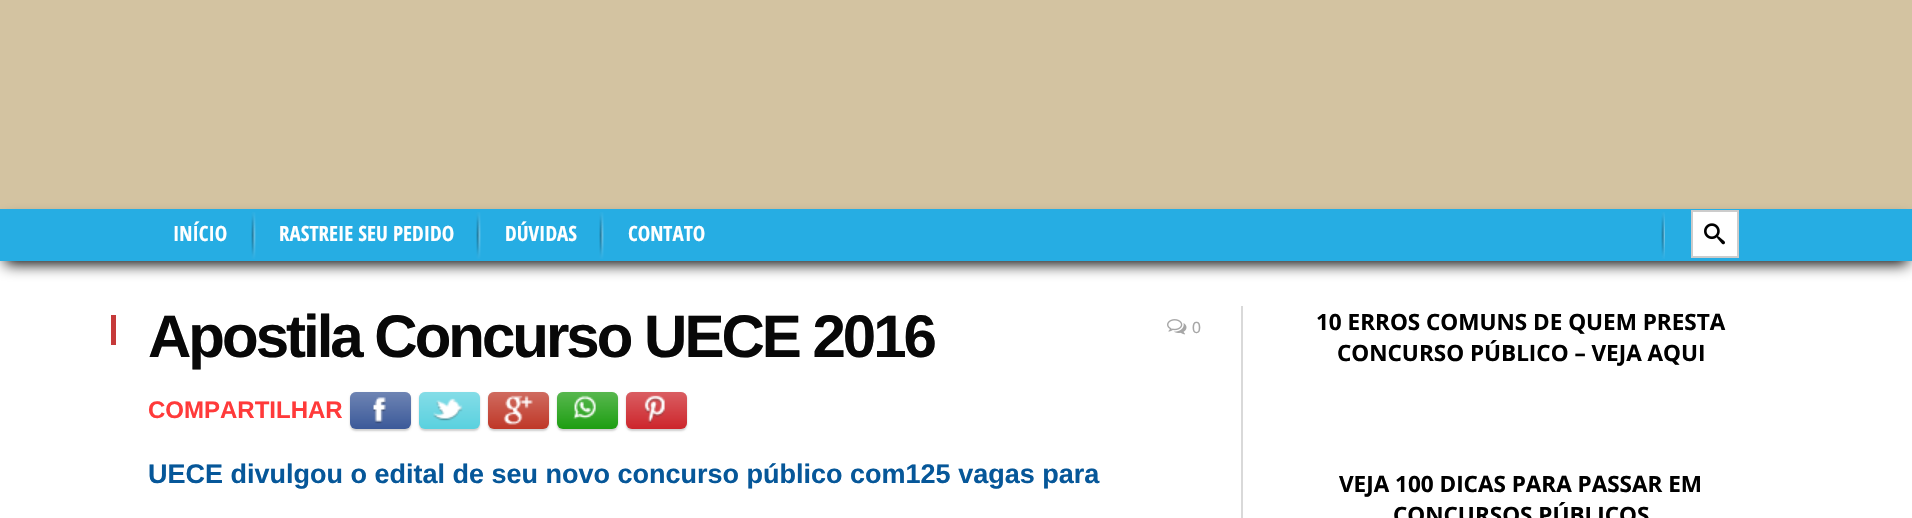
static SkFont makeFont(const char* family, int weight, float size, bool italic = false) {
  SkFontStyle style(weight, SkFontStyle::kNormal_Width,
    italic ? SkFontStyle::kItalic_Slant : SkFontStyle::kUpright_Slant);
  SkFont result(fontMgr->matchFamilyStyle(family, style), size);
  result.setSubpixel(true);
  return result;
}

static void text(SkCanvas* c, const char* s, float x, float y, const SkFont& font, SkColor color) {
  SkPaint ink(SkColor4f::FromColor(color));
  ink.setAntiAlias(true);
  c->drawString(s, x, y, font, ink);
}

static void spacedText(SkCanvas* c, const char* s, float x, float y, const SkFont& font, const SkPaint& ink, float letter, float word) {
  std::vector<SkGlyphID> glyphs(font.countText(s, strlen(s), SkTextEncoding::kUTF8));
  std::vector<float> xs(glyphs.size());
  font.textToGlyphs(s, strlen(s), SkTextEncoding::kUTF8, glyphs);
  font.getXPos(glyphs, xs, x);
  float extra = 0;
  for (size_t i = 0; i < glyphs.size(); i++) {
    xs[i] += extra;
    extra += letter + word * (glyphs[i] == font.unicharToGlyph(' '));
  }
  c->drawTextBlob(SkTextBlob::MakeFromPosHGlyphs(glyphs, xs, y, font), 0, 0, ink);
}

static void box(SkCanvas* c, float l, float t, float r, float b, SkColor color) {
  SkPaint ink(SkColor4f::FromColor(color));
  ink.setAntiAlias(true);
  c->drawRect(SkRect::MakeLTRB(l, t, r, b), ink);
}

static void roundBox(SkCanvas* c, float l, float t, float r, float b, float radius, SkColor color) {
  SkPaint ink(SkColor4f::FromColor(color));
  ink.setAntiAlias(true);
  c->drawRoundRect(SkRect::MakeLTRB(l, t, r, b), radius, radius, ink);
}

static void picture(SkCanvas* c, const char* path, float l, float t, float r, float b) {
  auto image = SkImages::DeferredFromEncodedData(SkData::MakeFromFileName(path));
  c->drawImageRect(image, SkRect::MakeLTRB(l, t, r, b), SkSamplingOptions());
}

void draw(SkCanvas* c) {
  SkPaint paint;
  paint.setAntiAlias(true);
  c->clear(0xffffffff);
  box(c, 0, 0, 1912, 209, 0xffd3c3a1);
  paint.setColor(0xff000000);
  paint.setMaskFilter(SkMaskFilter::MakeBlur(kNormal_SkBlurStyle, 7.5f));
  c->drawRect(SkRect::MakeLTRB(5, 221, 1908, 264), paint);
  paint.setMaskFilter(nullptr);
  box(c, 0, 209, 1912, 261, 0xff26ade3);
  SkFont face1 = makeFont("Open Sans Condensed", 700, 21);
  text(c, "INÍCIO", 173, 241, face1, 0xffffffff);
  picture(c, "img_01.png", 251, 212, 256, 259);
  text(c, "RASTREIE SEU PEDIDO", 279, 241, face1, 0xffffffff);
  picture(c, "img_01.png", 476, 212, 481, 259);
  text(c, "DÚVIDAS", 505, 241, face1, 0xffffffff);
  picture(c, "img_01.png", 599, 212, 604, 259);
  text(c, "CONTATO", 628, 241, face1, 0xffffffff);
  picture(c, "img_02.png", 1661, 212, 1665, 259);
  paint.setColor(0xffffffff);
  c->drawRect(SkRect::MakeLTRB(1692, 211, 1738, 257), paint);
  paint.setStyle(SkPaint::kStroke_Style);
  paint.setStrokeWidth(2);
  paint.setColor(0xffcccccc);
  c->drawRect(SkRect::MakeLTRB(1692, 211, 1738, 257), paint);
  picture(c, "img_03.png", 1704, 223, 1725, 245);
  box(c, 111, 315, 116, 345, 0xffc63a3a);
  SkFont face2 = makeFont("Liberation Sans", 700, 60);
  paint.setStyle(SkPaint::kFill_Style);
  paint.setColor(0xff080808);
  spacedText(c, "Apostila Concurso UECE 2016", 148, 357, face2, paint, -3, 0);
  picture(c, "img_04.png", 1167, 319, 1187, 335);
  SkFont face3 = makeFont("Liberation Sans", 400, 16);
  text(c, "0", 1192, 333, face3, 0xffa6a6a6);
  SkFont face4 = makeFont("Liberation Sans", 700, 24);
  text(c, "COMPARTILHAR", 148, 418, face4, 0xffff3a3a);
  paint.setColor(0x30000000);
  paint.setMaskFilter(SkMaskFilter::MakeBlur(kNormal_SkBlurStyle, 1));
  c->drawRoundRect(SkRect::MakeLTRB(350, 393, 411, 431), 6, 6, paint);
  paint.setMaskFilter(nullptr);
  roundBox(c, 350, 392, 411, 429, 6, 0xff3b5999);
  {
    const SkColor colors[] = {0x00ffffff, 0x42ffffff};
    const float stops[] = {0, 1};
    const SkPoint ends[] = {{380, 429}, {380, 392}};
    paint.setShader(SkGradientShader::MakeLinear(ends, colors, stops, 2, SkTileMode::kClamp));
    paint.setAlpha(255);
  }
  c->drawRoundRect(SkRect::MakeLTRB(350, 392, 411, 429), 6, 6, paint);
  picture(c, "img_05.png", 373, 397, 386, 424);
  paint.setShader(nullptr);
  paint.setColor(0x30000000);
  paint.setMaskFilter(SkMaskFilter::MakeBlur(kNormal_SkBlurStyle, 1));
  c->drawRoundRect(SkRect::MakeLTRB(419, 393, 480, 431), 6, 6, paint);
  paint.setMaskFilter(nullptr);
  roundBox(c, 419, 392, 480, 429, 6, 0xff59d1df);
  {
    const SkColor colors[] = {0x00ffffff, 0x42ffffff};
    const float stops[] = {0, 1};
    const SkPoint ends[] = {{449, 429}, {449, 392}};
    paint.setShader(SkGradientShader::MakeLinear(ends, colors, stops, 2, SkTileMode::kClamp));
    paint.setAlpha(255);
  }
  c->drawRoundRect(SkRect::MakeLTRB(419, 392, 480, 429), 6, 6, paint);
  picture(c, "img_06.png", 433, 398, 463, 421);
  paint.setShader(nullptr);
  paint.setColor(0x30000000);
  paint.setMaskFilter(SkMaskFilter::MakeBlur(kNormal_SkBlurStyle, 1));
  c->drawRoundRect(SkRect::MakeLTRB(488, 393, 549, 431), 6, 6, paint);
  paint.setMaskFilter(nullptr);
  roundBox(c, 488, 392, 549, 429, 6, 0xffbf3727);
  {
    const SkColor colors[] = {0x00ffffff, 0x42ffffff};
    const float stops[] = {0, 1};
    const SkPoint ends[] = {{518, 429}, {518, 392}};
    paint.setShader(SkGradientShader::MakeLinear(ends, colors, stops, 2, SkTileMode::kClamp));
    paint.setAlpha(255);
  }
  c->drawRoundRect(SkRect::MakeLTRB(488, 392, 549, 429), 6, 6, paint);
  picture(c, "img_07.png", 503, 395, 533, 425);
  paint.setShader(nullptr);
  paint.setColor(0x30000000);
  paint.setMaskFilter(SkMaskFilter::MakeBlur(kNormal_SkBlurStyle, 1));
  c->drawRoundRect(SkRect::MakeLTRB(557, 393, 618, 431), 6, 6, paint);
  paint.setMaskFilter(nullptr);
  roundBox(c, 557, 392, 618, 429, 6, 0xff1d9e11);
  {
    const SkColor colors[] = {0x00ffffff, 0x42ffffff};
    const float stops[] = {0, 1};
    const SkPoint ends[] = {{587, 429}, {587, 392}};
    paint.setShader(SkGradientShader::MakeLinear(ends, colors, stops, 2, SkTileMode::kClamp));
    paint.setAlpha(255);
  }
  c->drawRoundRect(SkRect::MakeLTRB(557, 392, 618, 429), 6, 6, paint);
  picture(c, "img_08.png", 573, 395, 596, 419);
  paint.setShader(nullptr);
  paint.setColor(0x30000000);
  paint.setMaskFilter(SkMaskFilter::MakeBlur(kNormal_SkBlurStyle, 1));
  c->drawRoundRect(SkRect::MakeLTRB(626, 393, 687, 431), 6, 6, paint);
  paint.setMaskFilter(nullptr);
  roundBox(c, 626, 392, 687, 429, 6, 0xffcd252b);
  {
    const SkColor colors[] = {0x00ffffff, 0x42ffffff};
    const float stops[] = {0, 1};
    const SkPoint ends[] = {{656, 429}, {656, 392}};
    paint.setShader(SkGradientShader::MakeLinear(ends, colors, stops, 2, SkTileMode::kClamp));
    paint.setAlpha(255);
  }
  c->drawRoundRect(SkRect::MakeLTRB(626, 392, 687, 429), 6, 6, paint);
  picture(c, "img_09.png", 644, 395, 665, 424);
  SkFont face5 = makeFont("Liberation Sans", 700, 27);
  text(c, "UECE divulgou o edital de seu novo concurso público com125 vagas para", 148, 483, face5, 0xff065799);
  box(c, 1241, 306, 1243, 518, 0xffd9d9d9);
  SkFont face6 = makeFont("Open Sans", 700, 22.5f);
  text(c, "10 ERROS COMUNS DE QUEM PRESTA", 1316, 330, face6, 0xff000000);
  text(c, "CONCURSO PÚBLICO – VEJA AQUI", 1337, 361, face6, 0xff000000);
  text(c, "VEJA 100 DICAS PARA PASSAR EM", 1339, 492, face6, 0xff000000);
  text(c, "CONCURSOS PÚBLICOS", 1393, 523, face6, 0xff000000);
}
